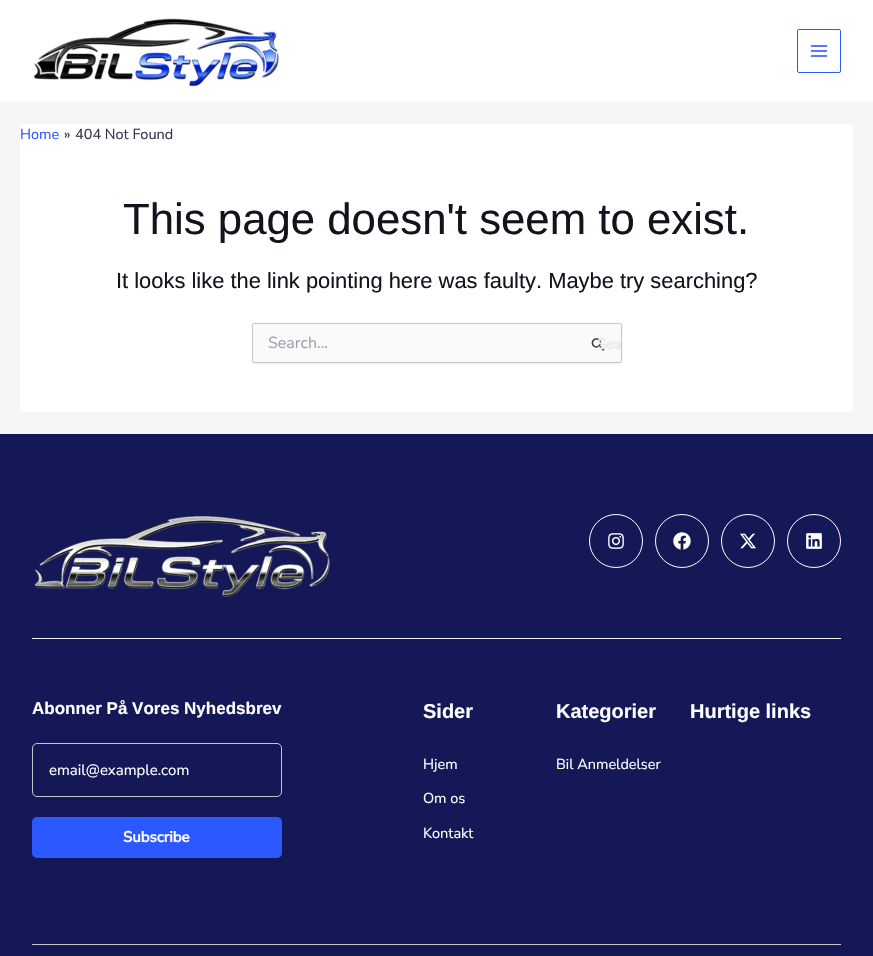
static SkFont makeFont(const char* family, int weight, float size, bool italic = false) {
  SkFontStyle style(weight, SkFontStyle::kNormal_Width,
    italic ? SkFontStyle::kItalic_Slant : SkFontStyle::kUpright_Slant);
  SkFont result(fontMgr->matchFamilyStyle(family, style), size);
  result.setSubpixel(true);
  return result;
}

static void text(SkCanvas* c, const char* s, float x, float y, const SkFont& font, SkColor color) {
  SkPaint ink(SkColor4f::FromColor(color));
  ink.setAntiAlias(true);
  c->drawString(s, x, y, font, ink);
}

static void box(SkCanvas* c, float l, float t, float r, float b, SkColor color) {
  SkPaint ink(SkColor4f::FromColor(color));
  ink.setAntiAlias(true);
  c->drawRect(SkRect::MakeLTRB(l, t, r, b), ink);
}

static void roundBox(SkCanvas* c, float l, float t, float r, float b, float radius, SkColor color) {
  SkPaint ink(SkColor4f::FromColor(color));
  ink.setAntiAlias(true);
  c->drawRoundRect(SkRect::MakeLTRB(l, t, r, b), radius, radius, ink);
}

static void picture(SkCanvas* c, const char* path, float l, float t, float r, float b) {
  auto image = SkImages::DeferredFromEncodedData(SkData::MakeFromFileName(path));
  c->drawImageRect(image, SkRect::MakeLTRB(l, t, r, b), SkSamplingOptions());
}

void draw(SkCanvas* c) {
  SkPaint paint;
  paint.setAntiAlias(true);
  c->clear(0xfff6f6f6);
  box(c, 0, 0, 873, 102, 0xffffffff);
  picture(c, "img_01.png", 33, 18, 279, 87);
  paint.setStyle(SkPaint::kStroke_Style);
  paint.setStrokeWidth(1);
  paint.setColor(0xff2b59ff);
  c->drawRoundRect(SkRect::MakeLTRB(797.5f, 29.5f, 840.5f, 72.5f), 1.5f, 1.5f, paint);
  picture(c, "img_02.png", 810, 45, 828, 57);
  box(c, 20, 124, 853, 412, 0xffffffff);
  SkFont face1 = makeFont("Nunito Sans", 400, 14.5f);
  text(c, "Home", 20, 139, face1, 0xff2b59ff);
  text(c, "»", 64, 139, face1, 0xff2f354b);
  text(c, "404 Not Found", 75, 139, face1, 0xff2f354b);
  SkFont face2 = makeFont("Liberation Sans", 400, 43.75f);
  text(c, "This page doesn't seem to exist.", 123, 234, face2, 0xff12141d);
  SkFont face3 = makeFont("Liberation Sans", 400, 21.9f);
  text(c, "It looks like the link pointing here was faulty. Maybe try searching?", 116, 288, face3, 0xff12141d);
  paint.setStyle(SkPaint::kFill_Style);
  paint.setColor(0x0d000000);
  paint.setMaskFilter(SkMaskFilter::MakeBlur(kNormal_SkBlurStyle, 1));
  c->drawRoundRect(SkRect::MakeLTRB(252, 324, 622, 364), 2, 2, paint);
  paint.setMaskFilter(nullptr);
  paint.setColor(0xfffafafa);
  c->drawRoundRect(SkRect::MakeLTRB(252.5f, 323.5f, 621.5f, 362.5f), 1.5f, 1.5f, paint);
  paint.setStyle(SkPaint::kStroke_Style);
  paint.setColor(0xffc5c5cb);
  c->drawRoundRect(SkRect::MakeLTRB(252.5f, 323.5f, 621.5f, 362.5f), 1.5f, 1.5f, paint);
  SkFont face4 = makeFont("Nunito Sans", 400, 16);
  text(c, "Search...", 268, 348, face4, 0xff9ca3af);
  picture(c, "img_03.png", 591, 338, 605, 351);
  SkFont face5 = makeFont("Nunito Sans", 700, 14.5f);
  text(c, "Sea", 597, 349, face5, 0xffe9e9e9);
  box(c, 0, 434, 873, 956, 0xff141857);
  box(c, 32, 638, 841, 639, 0xfff6f6f6);
  picture(c, "img_04.png", 34, 515, 330, 597);
  paint.setColor(0xffffffff);
  c->drawCircle(616, 541, 26.5f, paint);
  picture(c, "img_05.png", 608, 533, 624, 549);
  c->drawCircle(682, 541, 26.5f, paint);
  picture(c, "img_06.png", 673, 532, 691, 550);
  c->drawCircle(748, 541, 26.5f, paint);
  picture(c, "img_07.png", 740, 533, 756, 549);
  c->drawCircle(814, 541, 26.5f, paint);
  picture(c, "img_08.png", 806, 533, 822, 549);
  SkFont face6 = makeFont("Liberation Sans", 700, 17);
  text(c, "Abonner På Vores Nyhedsbrev", 32, 714, face6, 0xffffffff);
  paint.setColor(0xffc5c5cb);
  c->drawRoundRect(SkRect::MakeLTRB(32.5f, 743.5f, 281.5f, 796.5f), 4.5f, 4.5f, paint);
  SkFont face7 = makeFont("Nunito Sans", 400, 15);
  text(c, "email@example.com", 49, 775, face7, 0xffffffff);
  roundBox(c, 32, 817, 282, 858, 5, 0xff2b59ff);
  SkFont face8 = makeFont("Nunito Sans", 700, 15);
  text(c, "Subscribe", 123, 842, face8, 0xffffffff);
  SkFont face9 = makeFont("Liberation Sans", 700, 20);
  text(c, "Sider", 423, 718, face9, 0xffffffff);
  text(c, "Hjem", 423, 769, face1, 0xffffffff);
  text(c, "Om os", 423, 803, face1, 0xffffffff);
  text(c, "Kontakt", 423, 838, face1, 0xffffffff);
  text(c, "Kategorier", 556, 718, face9, 0xffffffff);
  text(c, "Bil Anmeldelser", 556, 769, face1, 0xffffffff);
  text(c, "Hurtige links", 690, 718, face9, 0xffffffff);
  box(c, 32, 944, 841, 945, 0xffc5c5cb);
}
